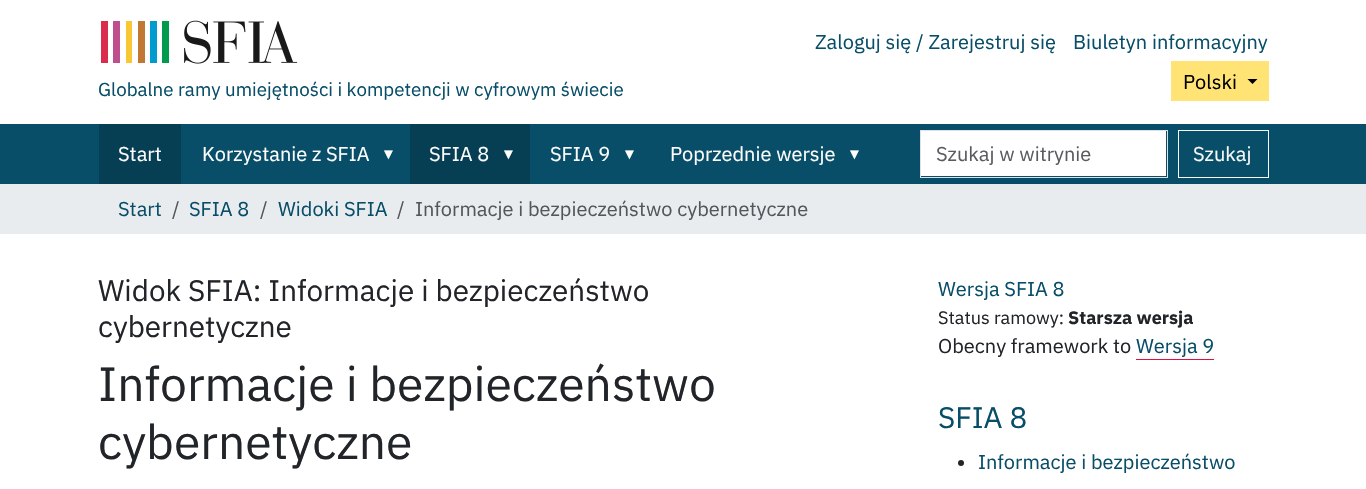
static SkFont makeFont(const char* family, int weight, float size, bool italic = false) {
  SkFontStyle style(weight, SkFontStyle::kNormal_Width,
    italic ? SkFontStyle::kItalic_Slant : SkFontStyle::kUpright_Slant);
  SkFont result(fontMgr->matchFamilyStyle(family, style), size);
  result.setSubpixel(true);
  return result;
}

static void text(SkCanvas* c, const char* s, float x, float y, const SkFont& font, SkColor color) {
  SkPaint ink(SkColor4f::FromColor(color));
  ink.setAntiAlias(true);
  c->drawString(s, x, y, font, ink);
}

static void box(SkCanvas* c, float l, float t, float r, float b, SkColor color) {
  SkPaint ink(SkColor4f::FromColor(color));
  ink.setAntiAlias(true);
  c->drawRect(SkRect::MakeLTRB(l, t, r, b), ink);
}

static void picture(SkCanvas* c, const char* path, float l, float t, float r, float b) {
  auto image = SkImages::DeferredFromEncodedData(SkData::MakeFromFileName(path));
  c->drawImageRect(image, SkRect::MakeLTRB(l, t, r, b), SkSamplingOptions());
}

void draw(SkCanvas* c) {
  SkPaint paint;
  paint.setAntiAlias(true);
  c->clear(0xffffffff);
  picture(c, "img_01.png", 101, 20, 298, 64);
  SkFont face1 = makeFont("IBM Plex Sans", 400, 18.75f);
  text(c, "Globalne ramy umiejętności i kompetencji w cyfrowym świecie", 98, 96, face1, 0xff084e68);
  SkFont face2 = makeFont("IBM Plex Sans", 400, 20);
  text(c, "Zaloguj się / Zarejestruj się", 815, 49, face2, 0xff084e68);
  text(c, "Biuletyn informacyjny", 1073, 49, face2, 0xff084e68);
  box(c, 1171, 61, 1269, 101, 0xffffe375);
  text(c, "Polski", 1183, 89, face2, 0xff000000);
  paint.setColor(0xff000000);
  c->drawPath(SkPathBuilder().moveTo(1247.5f, 79).lineTo(1257.5f, 79).lineTo(1252.5f, 84).close().detach(), paint);
  box(c, 0, 124, 1366, 184, 0xff084e68);
  box(c, 99, 124, 181, 184, 0xff063e53);
  text(c, "Start", 118, 161, face2, 0xffffffff);
  text(c, "Korzystanie z SFIA", 202, 161, face2, 0xffffffff);
  SkFont face3 = makeFont("Liberation Sans", 400, 15);
  text(c, "▼", 381, 159, face3, 0xffffffff);
  box(c, 410, 124, 530, 184, 0xff063e53);
  text(c, "SFIA 8", 429, 161, face2, 0xffffffff);
  text(c, "▼", 501, 159, face3, 0xffffffff);
  text(c, "SFIA 9", 550, 161, face2, 0xffffffff);
  text(c, "▼", 622, 159, face3, 0xffffffff);
  text(c, "Poprzednie wersje", 670, 161, face2, 0xffffffff);
  text(c, "▼", 847, 159, face3, 0xffffffff);
  box(c, 921, 131, 1166, 176, 0xffffffff);
  paint.setStyle(SkPaint::kStroke_Style);
  paint.setStrokeWidth(1);
  paint.setColor(0xffdee2e6);
  c->drawRect(SkRect::MakeLTRB(920.5f, 130.5f, 1167.5f, 177.5f), paint);
  text(c, "Szukaj w witrynie", 936, 161, face2, 0xff595c5f);
  paint.setColor(0xfff8f9fa);
  c->drawRect(SkRect::MakeLTRB(1178.5f, 130.5f, 1268.5f, 177.5f), paint);
  text(c, "Szukaj", 1193, 161, face2, 0xfff8f9fa);
  box(c, 0, 184, 1366, 234, 0xffe9ecef);
  text(c, "Start", 118, 216, face2, 0xff084e68);
  text(c, "/", 172, 216, face2, 0xff53575b);
  text(c, "SFIA 8", 189, 216, face2, 0xff084e68);
  text(c, "/", 260, 216, face2, 0xff53575b);
  text(c, "Widoki SFIA", 278, 216, face2, 0xff084e68);
  text(c, "/", 397, 216, face2, 0xff53575b);
  text(c, "Informacje i bezpieczeństwo cybernetyczne", 415, 216, face2, 0xff53575b);
  SkFont face4 = makeFont("IBM Plex Sans", 400, 29.6f);
  text(c, "Widok SFIA: Informacje i bezpieczeństwo", 98, 301, face4, 0xff212529);
  text(c, "cybernetyczne", 98, 337, face4, 0xff212529);
  SkFont face5 = makeFont("IBM Plex Sans", 400, 48);
  text(c, "Informacje i bezpieczeństwo", 98, 401, face5, 0xff212529);
  text(c, "cybernetyczne", 98, 459, face5, 0xff212529);
  text(c, "Wersja SFIA 8", 938, 296, face2, 0xff084e68);
  SkFont face6 = makeFont("IBM Plex Sans", 400, 18);
  text(c, "Status ramowy:", 938, 324, face6, 0xff212529);
  SkFont face7 = makeFont("IBM Plex Sans", 700, 18);
  text(c, "Starsza wersja", 1068, 324, face7, 0xff212529);
  text(c, "Obecny framework to", 938, 353, face2, 0xff212529);
  text(c, "Wersja 9", 1136, 353, face2, 0xff084e68);
  box(c, 1136, 359, 1214, 360, 0xffd8133d);
  text(c, "SFIA 8", 938, 428, face4, 0xff084e68);
  paint.setStyle(SkPaint::kFill_Style);
  paint.setColor(0xff212529);
  c->drawCircle(961, 463, 3, paint);
  text(c, "Informacje i bezpieczeństwo", 978, 469, face2, 0xff084e68);
}
